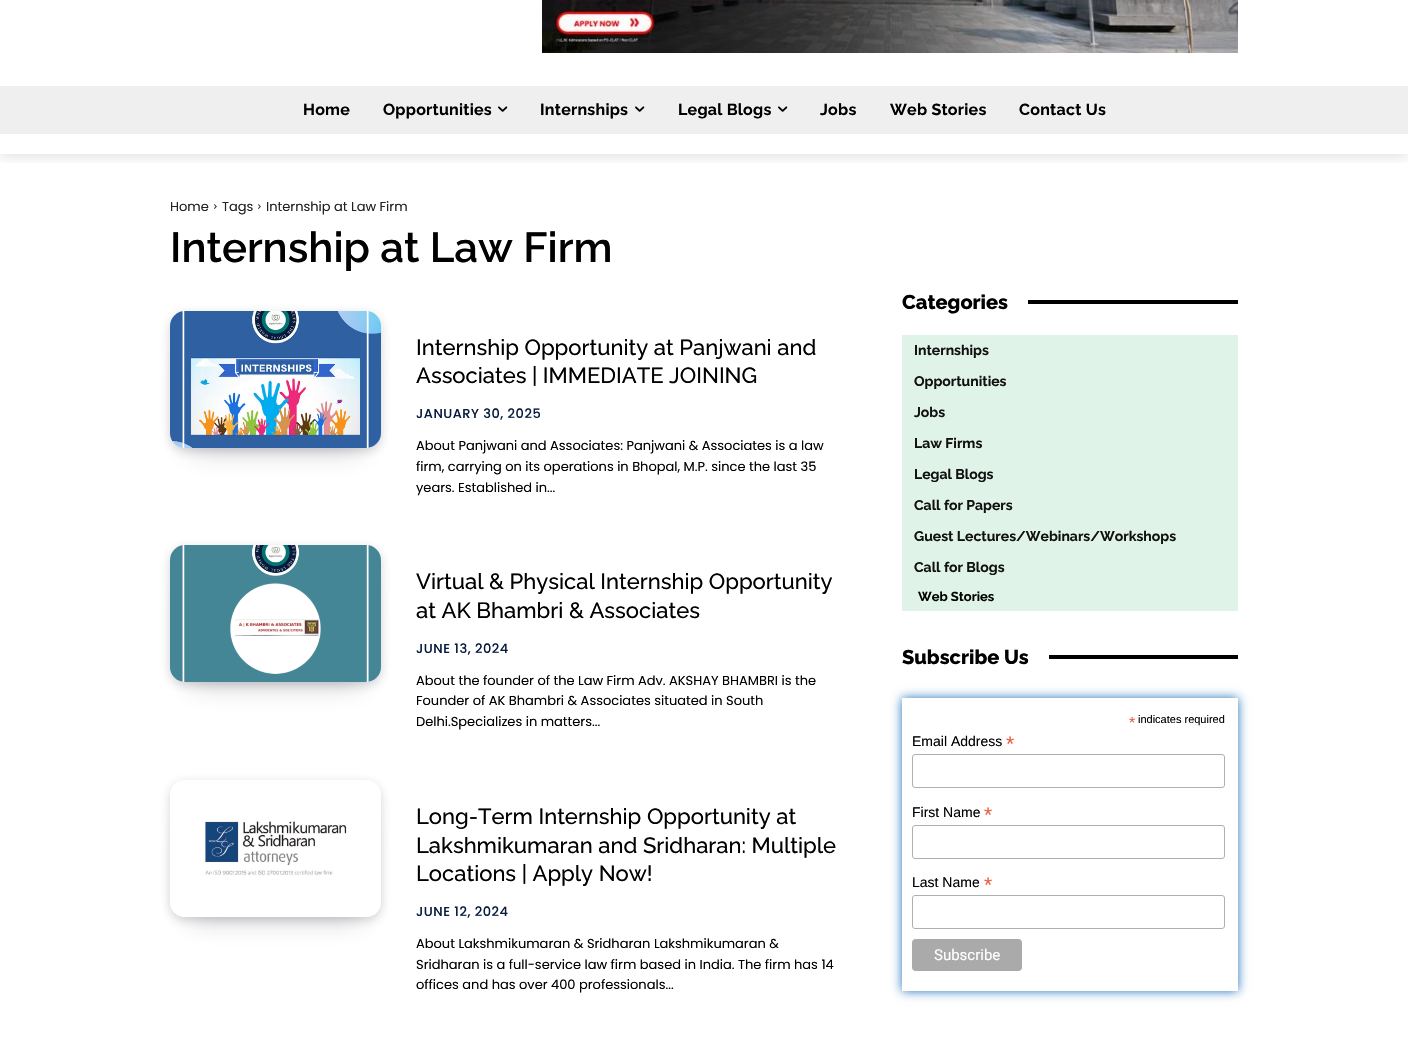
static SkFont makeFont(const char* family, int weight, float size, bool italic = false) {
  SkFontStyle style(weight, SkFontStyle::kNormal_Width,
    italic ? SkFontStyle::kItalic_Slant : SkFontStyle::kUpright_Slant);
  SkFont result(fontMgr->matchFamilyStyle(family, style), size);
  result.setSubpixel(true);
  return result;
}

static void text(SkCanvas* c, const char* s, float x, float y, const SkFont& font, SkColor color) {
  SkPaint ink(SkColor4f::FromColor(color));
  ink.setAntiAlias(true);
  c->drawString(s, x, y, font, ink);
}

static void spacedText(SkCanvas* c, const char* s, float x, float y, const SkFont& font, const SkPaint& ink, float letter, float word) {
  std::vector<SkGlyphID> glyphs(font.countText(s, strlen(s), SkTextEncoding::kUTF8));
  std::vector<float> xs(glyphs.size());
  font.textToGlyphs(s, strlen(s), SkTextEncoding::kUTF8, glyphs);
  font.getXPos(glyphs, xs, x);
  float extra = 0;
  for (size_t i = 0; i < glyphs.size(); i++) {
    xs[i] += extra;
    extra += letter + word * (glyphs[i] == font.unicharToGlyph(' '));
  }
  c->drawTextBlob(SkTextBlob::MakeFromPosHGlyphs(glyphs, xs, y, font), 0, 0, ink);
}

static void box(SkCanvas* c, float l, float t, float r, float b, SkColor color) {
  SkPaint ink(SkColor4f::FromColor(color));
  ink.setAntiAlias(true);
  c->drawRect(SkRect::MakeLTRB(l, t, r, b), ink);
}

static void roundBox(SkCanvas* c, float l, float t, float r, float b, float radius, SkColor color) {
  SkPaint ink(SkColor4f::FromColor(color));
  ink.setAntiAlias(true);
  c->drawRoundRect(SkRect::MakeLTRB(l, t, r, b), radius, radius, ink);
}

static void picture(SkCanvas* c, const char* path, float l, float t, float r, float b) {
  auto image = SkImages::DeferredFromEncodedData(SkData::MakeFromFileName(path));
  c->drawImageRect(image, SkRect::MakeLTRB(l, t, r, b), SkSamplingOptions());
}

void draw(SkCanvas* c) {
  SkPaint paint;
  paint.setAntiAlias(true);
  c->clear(0xffffffff);
  c->save();
  c->clipRect(SkRect::MakeLTRB(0, 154, 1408, 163));
  paint.setColor(0x29000000);
  paint.setMaskFilter(SkMaskFilter::MakeBlur(kNormal_SkBlurStyle, 8));
  c->drawRect(SkRect::MakeLTRB(0, -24, 1408, 154), paint);
  paint.setMaskFilter(nullptr);
  c->restore();
  picture(c, "img_01.png", 542, 0, 1238, 53);
  box(c, 0, 86, 1408, 134, 0xffefefef);
  SkFont face1 = makeFont("Raleway", 700, 16);
  paint.setColor(0xff000000);
  spacedText(c, "Home", 303, 115, face1, paint, 0.25f, 0);
  spacedText(c, "Opportunities", 383, 115, face1, paint, 0.25f, 0);
  picture(c, "img_02.png", 498, 106, 508, 112);
  spacedText(c, "Internships", 540, 115, face1, paint, 0.25f, 0);
  picture(c, "img_02.png", 635, 106, 645, 112);
  spacedText(c, "Legal Blogs", 678, 115, face1, paint, 0.25f, 0);
  picture(c, "img_02.png", 778, 106, 788, 112);
  spacedText(c, "Jobs", 820, 115, face1, paint, 0.25f, 0);
  spacedText(c, "Web Stories", 890, 115, face1, paint, 0.25f, 0);
  spacedText(c, "Contact Us", 1019, 115, face1, paint, 0.25f, 0);
  SkFont face2 = makeFont("Poppins", 400, 13);
  text(c, "Home", 170, 211, face2, 0xff222222);
  picture(c, "img_03.png", 214, 204, 217, 209);
  text(c, "Tags", 222, 211, face2, 0xff222222);
  picture(c, "img_03.png", 258, 204, 261, 209);
  text(c, "Internship at Law Firm", 266, 211, face2, 0xff222222);
  SkFont face3 = makeFont("Raleway", 600, 42);
  text(c, "Internship at Law Firm", 170, 262, face3, 0xff000000);
  paint.setColor(0x33070a19);
  paint.setMaskFilter(SkMaskFilter::MakeBlur(kNormal_SkBlurStyle, 13.5f));
  c->drawRect(SkRect::MakeLTRB(190, 353, 361, 450), paint);
  paint.setMaskFilter(nullptr);
  paint.setMaskFilter(SkMaskFilter::MakeBlur(kNormal_SkBlurStyle, 6));
  c->drawRoundRect(SkRect::MakeLTRB(171, 315, 380, 450), 14, 14, paint);
  paint.setMaskFilter(nullptr);
  picture(c, "img_04.png", 170, 311, 381, 448);
  SkFont face4 = makeFont("Raleway", 500, 22);
  text(c, "Internship Opportunity at Panjwani and", 416, 355, face4, 0xff000000);
  text(c, "Associates | IMMEDIATE JOINING", 416, 383, face4, 0xff000000);
  SkFont face5 = makeFont("Poppins", 500, 13);
  paint.setColor(0xff071b3e);
  spacedText(c, "JANUARY 30, 2025", 416, 418, face5, paint, 0.5f, 0);
  text(c, "About Panjwani and Associates: Panjwani & Associates is a law", 416, 450, face2, 0xff000000);
  text(c, "firm, carrying on its operations in Bhopal, M.P. since the last 35", 416, 471, face2, 0xff000000);
  text(c, "years. Established in...", 416, 492, face2, 0xff000000);
  paint.setColor(0x33070a19);
  paint.setMaskFilter(SkMaskFilter::MakeBlur(kNormal_SkBlurStyle, 13.5f));
  c->drawRect(SkRect::MakeLTRB(190, 587, 361, 684), paint);
  paint.setMaskFilter(nullptr);
  paint.setMaskFilter(SkMaskFilter::MakeBlur(kNormal_SkBlurStyle, 6));
  c->drawRoundRect(SkRect::MakeLTRB(171, 549, 380, 684), 14, 14, paint);
  paint.setMaskFilter(nullptr);
  picture(c, "img_05.png", 170, 545, 381, 682);
  text(c, "Virtual & Physical Internship Opportunity", 416, 589, face4, 0xff000000);
  text(c, "at AK Bhambri & Associates", 416, 618, face4, 0xff000000);
  paint.setColor(0xff071b3e);
  spacedText(c, "JUNE 13, 2024", 416, 653, face5, paint, 0.5f, 0);
  text(c, "About the founder of the Law Firm Adv. AKSHAY BHAMBRI is the", 416, 685, face2, 0xff000000);
  text(c, "Founder of AK Bhambri & Associates situated in South", 416, 705, face2, 0xff000000);
  text(c, "Delhi.Specializes in matters...", 416, 726, face2, 0xff000000);
  c->save();
  c->clipPath(SkPathBuilder(SkPathFillType::kEvenOdd).moveTo(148, 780).lineTo(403, 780).lineTo(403, 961).lineTo(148, 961).close().moveTo(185, 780).lineTo(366, 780).cubicTo(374.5f, 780, 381, 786.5f, 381, 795).lineTo(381, 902).cubicTo(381, 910.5f, 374.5f, 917, 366, 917).lineTo(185, 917).cubicTo(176.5f, 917, 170, 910.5f, 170, 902).lineTo(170, 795).cubicTo(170, 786.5f, 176.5f, 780, 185, 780).close().detach(), true);
  paint.setColor(0x33070a19);
  paint.setMaskFilter(SkMaskFilter::MakeBlur(kNormal_SkBlurStyle, 13.5f));
  c->drawRect(SkRect::MakeLTRB(190, 822, 361, 919), paint);
  paint.setMaskFilter(nullptr);
  c->restore();
  c->save();
  c->clipPath(SkPathBuilder(SkPathFillType::kEvenOdd).moveTo(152, 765).lineTo(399, 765).lineTo(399, 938).lineTo(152, 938).close().moveTo(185, 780).lineTo(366, 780).cubicTo(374.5f, 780, 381, 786.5f, 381, 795).lineTo(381, 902).cubicTo(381, 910.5f, 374.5f, 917, 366, 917).lineTo(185, 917).cubicTo(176.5f, 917, 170, 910.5f, 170, 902).lineTo(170, 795).cubicTo(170, 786.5f, 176.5f, 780, 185, 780).close().detach(), true);
  paint.setMaskFilter(SkMaskFilter::MakeBlur(kNormal_SkBlurStyle, 6));
  c->drawRoundRect(SkRect::MakeLTRB(171, 784, 380, 919), 14, 14, paint);
  paint.setMaskFilter(nullptr);
  c->restore();
  picture(c, "img_06.png", 170, 821, 381, 917);
  text(c, "Long-Term Internship Opportunity at", 416, 824, face4, 0xff000000);
  text(c, "Lakshmikumaran and Sridharan: Multiple", 416, 853, face4, 0xff000000);
  text(c, "Locations | Apply Now!", 416, 881, face4, 0xff000000);
  paint.setColor(0xff071b3e);
  spacedText(c, "JUNE 12, 2024", 416, 916, face5, paint, 0.5f, 0);
  text(c, "About Lakshmikumaran & Sridharan Lakshmikumaran &", 416, 948, face2, 0xff000000);
  text(c, "Sridharan is a full-service law firm based in India. The firm has 14", 416, 969, face2, 0xff000000);
  text(c, "offices and has over 400 professionals...", 416, 989, face2, 0xff000000);
  SkFont face6 = makeFont("Raleway", 800, 20);
  text(c, "Categories", 902, 309, face6, 0xff000000);
  box(c, 1028, 300, 1238, 304, 0xff000000);
  box(c, 902, 335, 1238, 611, 0xffdff3e9);
  SkFont face7 = makeFont("Raleway", 700, 14);
  text(c, "Internships", 914, 355, face7, 0xff111111);
  text(c, "Opportunities", 914, 386, face7, 0xff111111);
  text(c, "Jobs", 914, 417, face7, 0xff111111);
  text(c, "Law Firms", 914, 448, face7, 0xff111111);
  text(c, "Legal Blogs", 914, 479, face7, 0xff111111);
  text(c, "Call for Papers", 914, 510, face7, 0xff111111);
  text(c, "Guest Lectures/Webinars/Workshops", 914, 541, face7, 0xff111111);
  text(c, "Call for Blogs", 914, 572, face7, 0xff111111);
  SkFont face8 = makeFont("Raleway", 700, 13);
  text(c, "Web Stories", 918, 601, face8, 0xff000000);
  text(c, "Subscribe Us", 902, 664, face6, 0xff000000);
  box(c, 1049, 655, 1238, 659, 0xff000000);
  c->save();
  c->clipPath(SkPathBuilder(SkPathFillType::kEvenOdd).moveTo(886, 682).lineTo(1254, 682).lineTo(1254, 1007).lineTo(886, 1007).close().moveTo(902, 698).lineTo(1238, 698).lineTo(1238, 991).lineTo(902, 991).close().detach(), true);
  paint.setColor(0xff1e73be);
  paint.setMaskFilter(SkMaskFilter::MakeBlur(kNormal_SkBlurStyle, 5));
  c->drawRect(SkRect::MakeLTRB(902, 698, 1238, 991), paint);
  paint.setMaskFilter(nullptr);
  c->restore();
  SkFont face9 = makeFont("Liberation Sans", 400, 16);
  text(c, "*", 1129, 728, face9, 0xffe85c41);
  SkFont face10 = makeFont("Liberation Sans", 400, 11);
  text(c, "indicates required", 1138, 723, face10, 0xff000000);
  SkFont face11 = makeFont("Liberation Sans", 400, 14);
  text(c, "Email Address", 912, 746, face11, 0xff000000);
  SkFont face12 = makeFont("Liberation Sans", 400, 21);
  text(c, "*", 1006, 751, face12, 0xffe85c41);
  paint.setStyle(SkPaint::kStroke_Style);
  paint.setStrokeWidth(1);
  paint.setColor(0xffabb0b2);
  c->drawRoundRect(SkRect::MakeLTRB(912.5f, 754.5f, 1224.5f, 787.5f), 2.5f, 2.5f, paint);
  text(c, "First Name", 912, 817, face11, 0xff000000);
  text(c, "*", 984, 822, face12, 0xffe85c41);
  c->drawRoundRect(SkRect::MakeLTRB(912.5f, 825.5f, 1224.5f, 858.5f), 2.5f, 2.5f, paint);
  text(c, "Last Name", 912, 887, face11, 0xff000000);
  text(c, "*", 984, 892, face12, 0xffe85c41);
  c->drawRoundRect(SkRect::MakeLTRB(912.5f, 895.5f, 1224.5f, 928.5f), 2.5f, 2.5f, paint);
  roundBox(c, 912, 939, 1022, 971, 4, 0xffaaaaaa);
  SkFont face13 = makeFont("Roboto", 400, 15);
  text(c, "Subscribe", 934, 960, face13, 0xffffffff);
}
